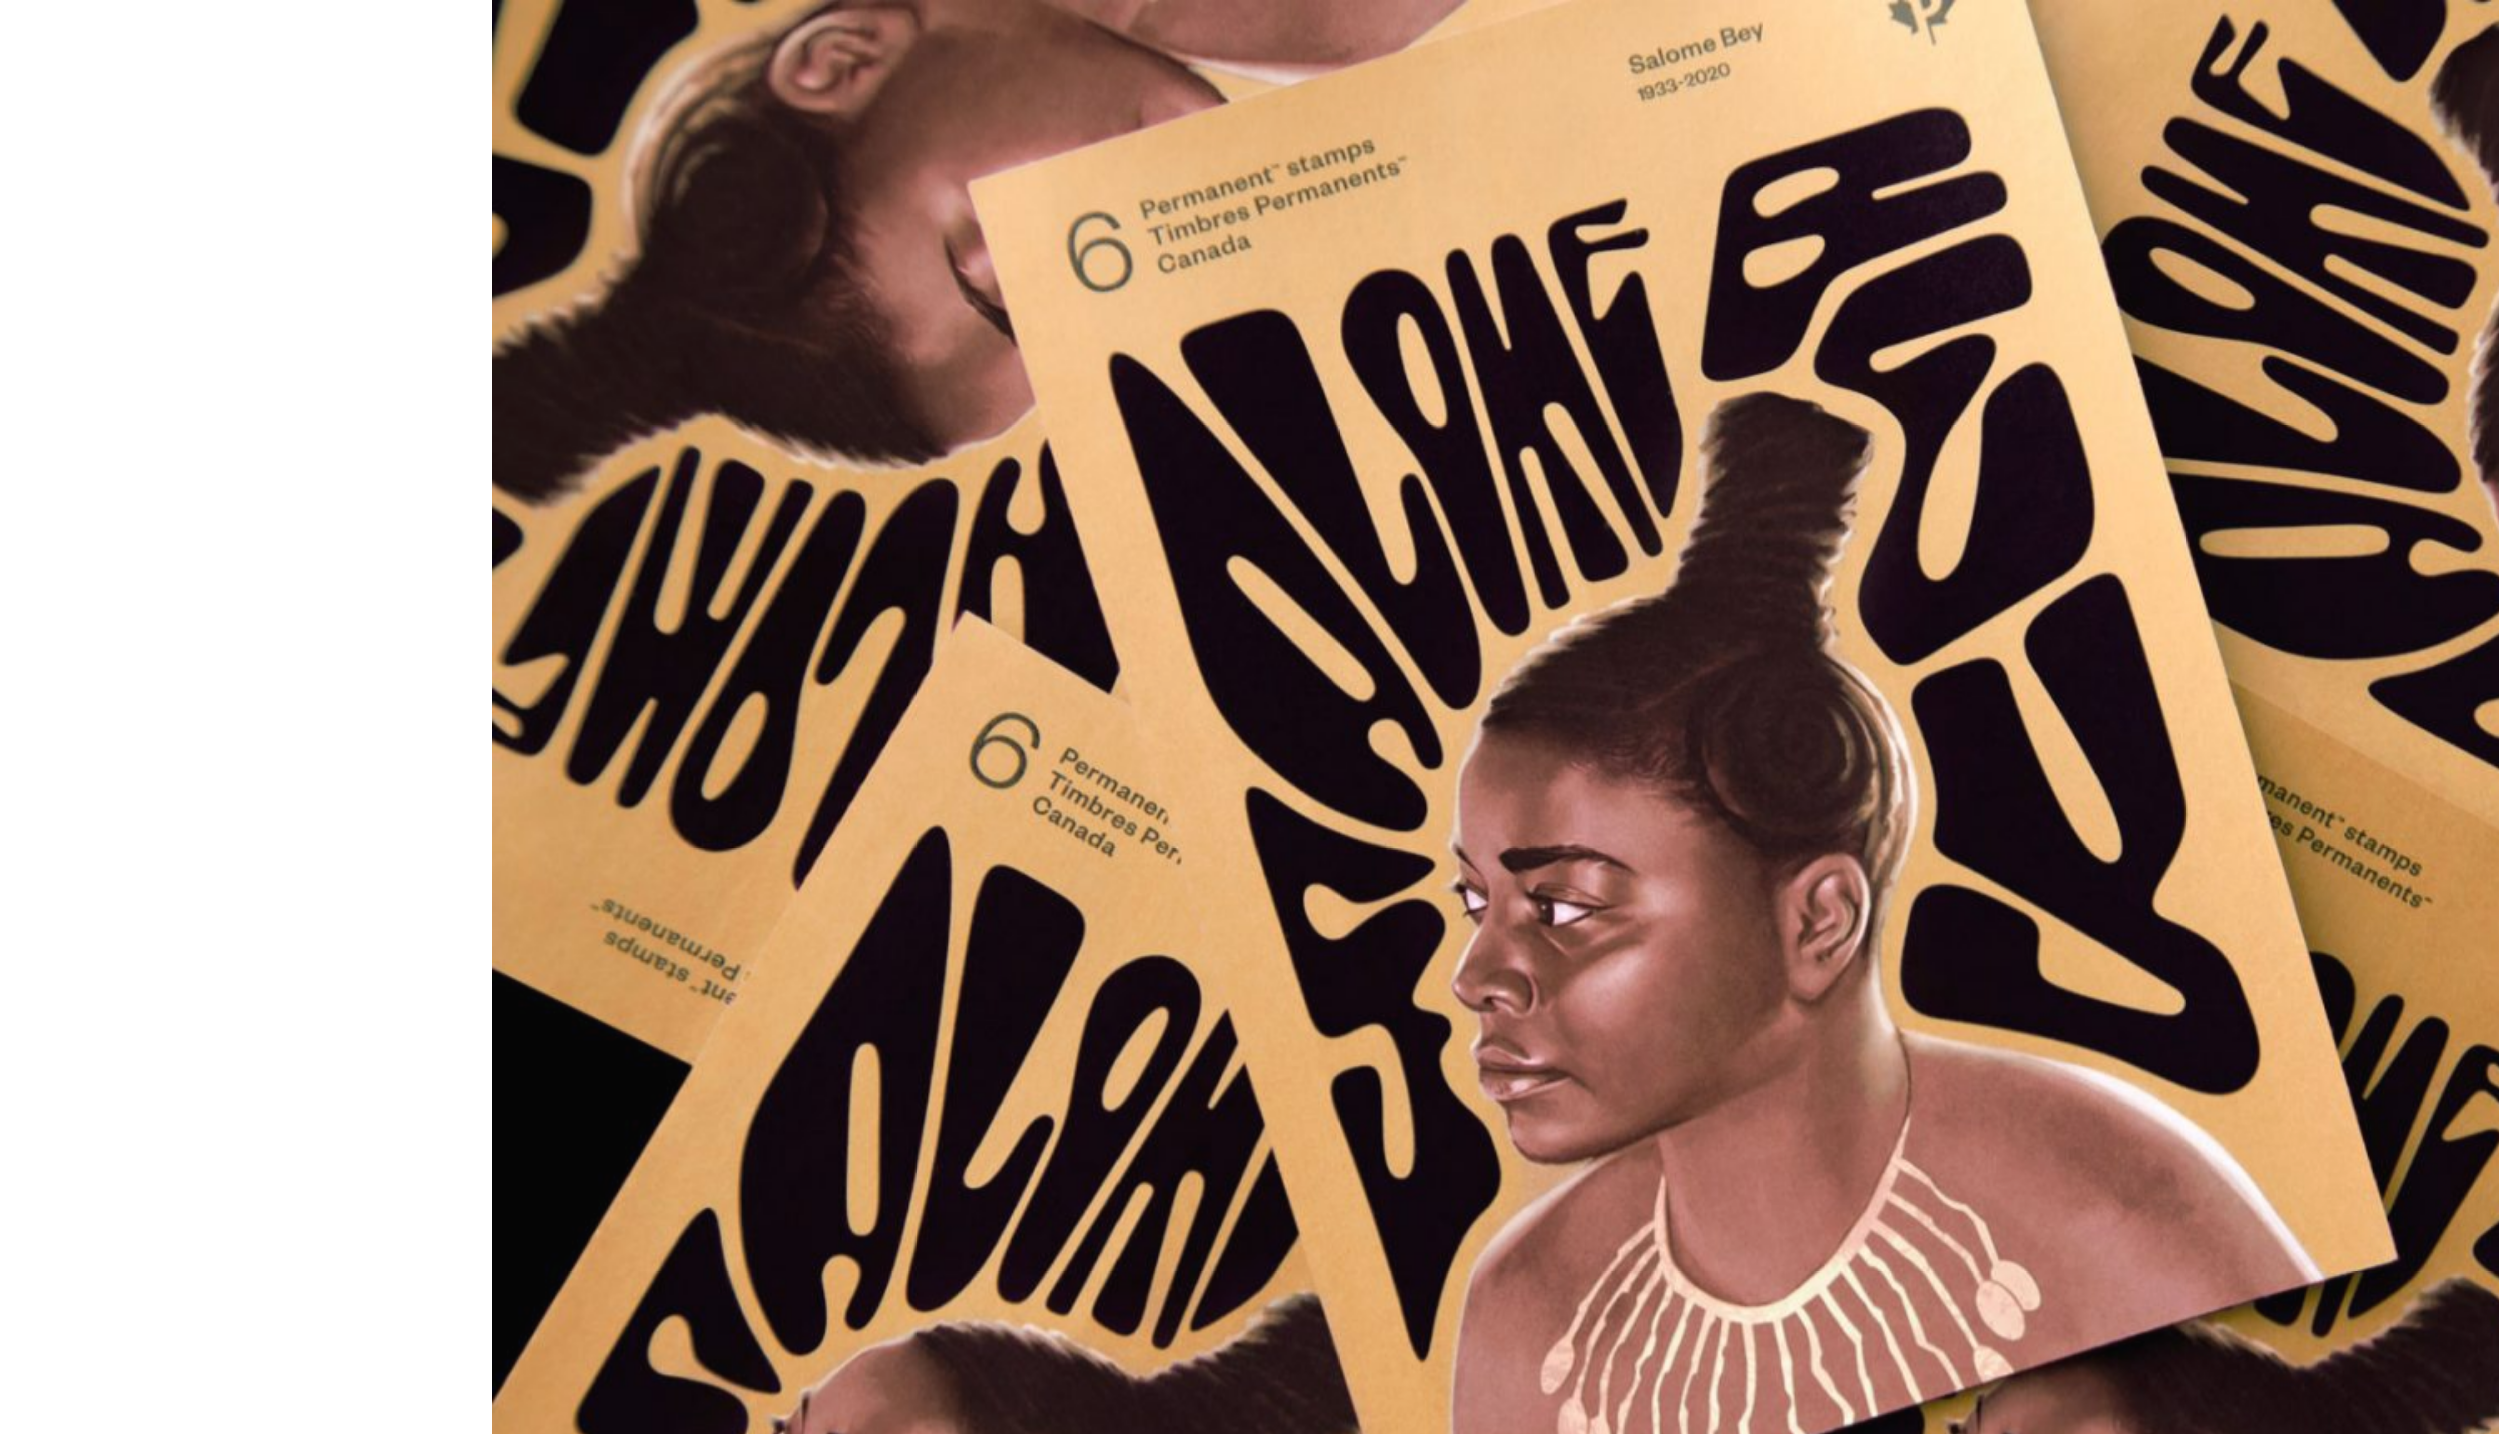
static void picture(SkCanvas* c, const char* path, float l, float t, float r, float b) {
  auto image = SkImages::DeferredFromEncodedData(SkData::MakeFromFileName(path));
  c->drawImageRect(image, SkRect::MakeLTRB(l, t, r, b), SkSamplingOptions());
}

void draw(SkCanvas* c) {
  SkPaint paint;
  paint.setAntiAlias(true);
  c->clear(0xffffffff);
  picture(c, "img_01.png", 492, 0, 2499, 1434);
}
